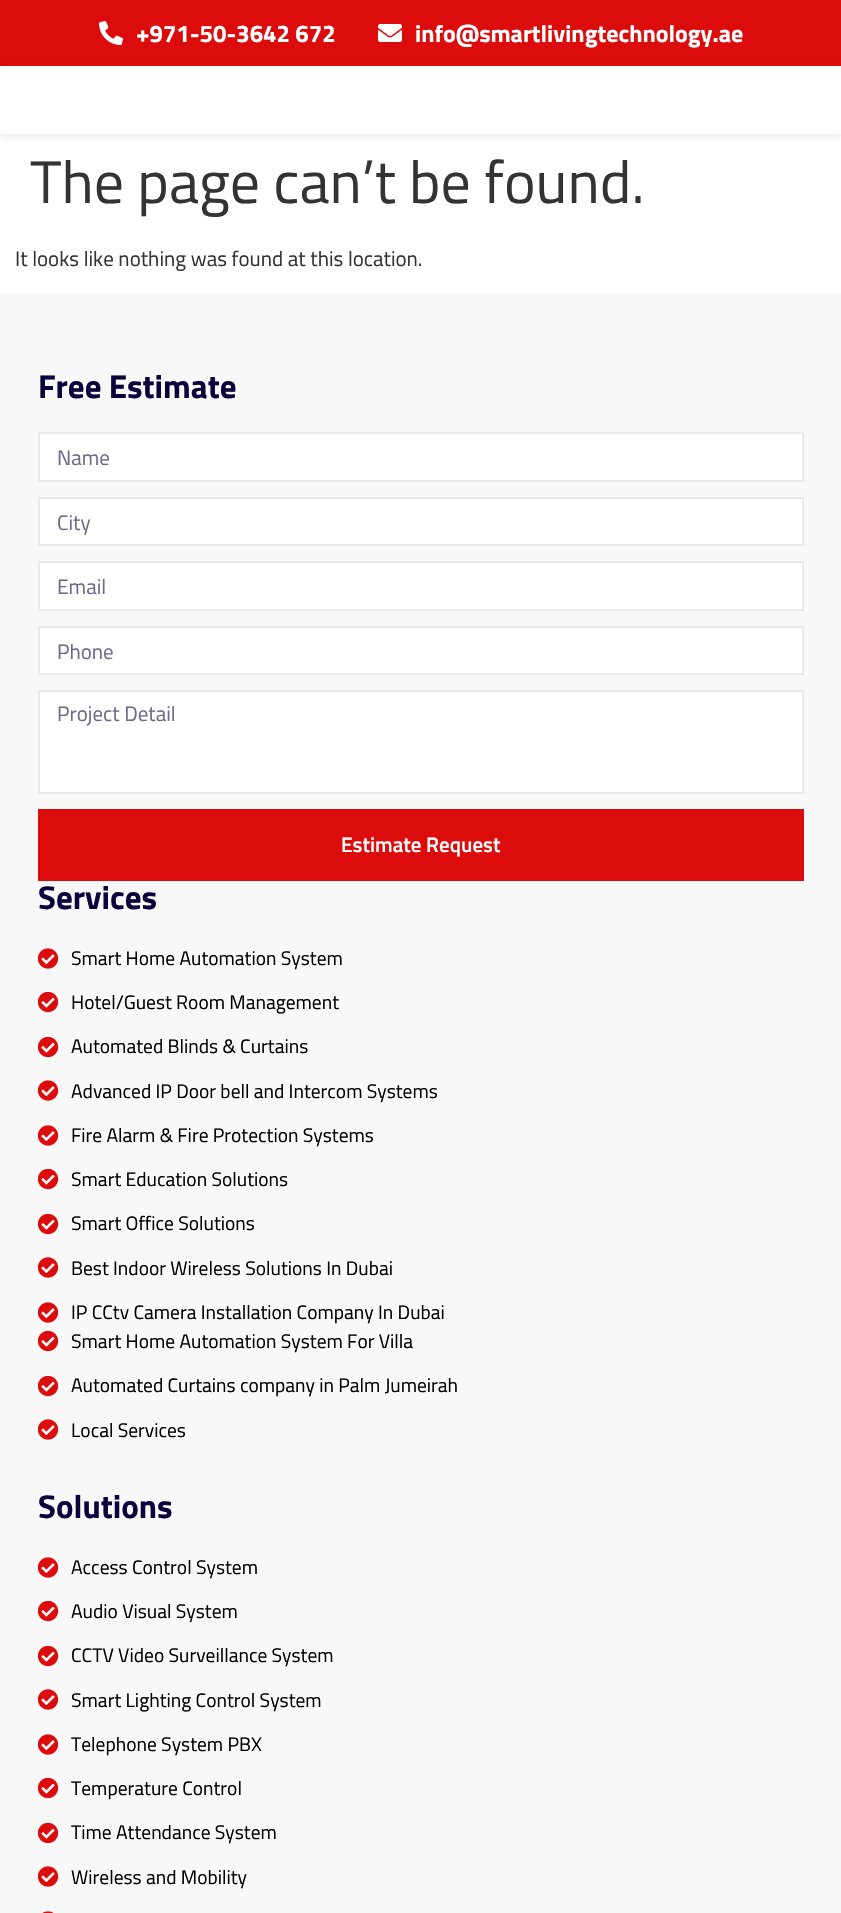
static SkFont makeFont(const char* family, int weight, float size, bool italic = false) {
  SkFontStyle style(weight, SkFontStyle::kNormal_Width,
    italic ? SkFontStyle::kItalic_Slant : SkFontStyle::kUpright_Slant);
  SkFont result(fontMgr->matchFamilyStyle(family, style), size);
  result.setSubpixel(true);
  return result;
}

static void text(SkCanvas* c, const char* s, float x, float y, const SkFont& font, SkColor color) {
  SkPaint ink(SkColor4f::FromColor(color));
  ink.setAntiAlias(true);
  c->drawString(s, x, y, font, ink);
}

static void box(SkCanvas* c, float l, float t, float r, float b, SkColor color) {
  SkPaint ink(SkColor4f::FromColor(color));
  ink.setAntiAlias(true);
  c->drawRect(SkRect::MakeLTRB(l, t, r, b), ink);
}

static void picture(SkCanvas* c, const char* path, float l, float t, float r, float b) {
  auto image = SkImages::DeferredFromEncodedData(SkData::MakeFromFileName(path));
  c->drawImageRect(image, SkRect::MakeLTRB(l, t, r, b), SkSamplingOptions());
}

void draw(SkCanvas* c) {
  SkPaint paint;
  paint.setAntiAlias(true);
  c->clear(0xffffffff);
  box(c, 0, 0, 841, 66, 0xffdc0b0c);
  picture(c, "img_01.png", 99, 21, 123, 45);
  SkFont face1 = makeFont("Titillium Web", 700, 24);
  text(c, "+971-50-3642 672", 136, 42, face1, 0xffffffff);
  picture(c, "img_02.png", 378, 24, 402, 42);
  text(c, "info@smartlivingtechnology.ae", 415, 42, face1, 0xffffffff);
  paint.setColor(0x1a000000);
  paint.setMaskFilter(SkMaskFilter::MakeBlur(kNormal_SkBlurStyle, 4));
  c->drawRect(SkRect::MakeLTRB(0, 68, 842, 135), paint);
  paint.setMaskFilter(nullptr);
  box(c, 0, 66, 841, 134, 0xffffffff);
  SkFont face2 = makeFont("Titillium Web", 400, 60);
  text(c, "The page can’t be found.", 30, 203, face2, 0xff333333);
  SkFont face3 = makeFont("Titillium Web", 400, 21);
  text(c, "It looks like nothing was found at this location.", 15, 266, face3, 0xff333333);
  box(c, 0, 294, 841, 1913, 0xfff8f8f8);
  SkFont face4 = makeFont("Titillium Web", 700, 33);
  text(c, "Free Estimate", 38, 398, face4, 0xff0a043c);
  paint.setColor(0xffffffff);
  c->drawRect(SkRect::MakeLTRB(39, 433, 803, 481), paint);
  paint.setStyle(SkPaint::kStroke_Style);
  paint.setStrokeWidth(2);
  paint.setColor(0xffeaeaea);
  c->drawRect(SkRect::MakeLTRB(39, 433, 803, 481), paint);
  text(c, "Name", 57, 465, face3, 0xff6c688a);
  paint.setStyle(SkPaint::kFill_Style);
  paint.setColor(0xffffffff);
  c->drawRect(SkRect::MakeLTRB(39, 498, 803, 545), paint);
  paint.setStyle(SkPaint::kStroke_Style);
  paint.setColor(0xffeaeaea);
  c->drawRect(SkRect::MakeLTRB(39, 498, 803, 545), paint);
  text(c, "City", 57, 530, face3, 0xff6c688a);
  paint.setStyle(SkPaint::kFill_Style);
  paint.setColor(0xffffffff);
  c->drawRect(SkRect::MakeLTRB(39, 562, 803, 610), paint);
  paint.setStyle(SkPaint::kStroke_Style);
  paint.setColor(0xffeaeaea);
  c->drawRect(SkRect::MakeLTRB(39, 562, 803, 610), paint);
  text(c, "Email", 57, 594, face3, 0xff6c688a);
  paint.setStyle(SkPaint::kFill_Style);
  paint.setColor(0xffffffff);
  c->drawRect(SkRect::MakeLTRB(39, 627, 803, 674), paint);
  paint.setStyle(SkPaint::kStroke_Style);
  paint.setColor(0xffeaeaea);
  c->drawRect(SkRect::MakeLTRB(39, 627, 803, 674), paint);
  text(c, "Phone", 57, 659, face3, 0xff6c688a);
  paint.setStyle(SkPaint::kFill_Style);
  paint.setColor(0xffffffff);
  c->drawRect(SkRect::MakeLTRB(39, 691, 803, 793), paint);
  paint.setStyle(SkPaint::kStroke_Style);
  paint.setColor(0xffeaeaea);
  c->drawRect(SkRect::MakeLTRB(39, 691, 803, 793), paint);
  text(c, "Project Detail", 57, 721, face3, 0xff6c688a);
  box(c, 38, 809, 804, 881, 0xffdc0b0c);
  SkFont face5 = makeFont("Titillium Web", 600, 21);
  text(c, "Estimate Request", 341, 852, face5, 0xffffffff);
  text(c, "Services", 38, 909, face4, 0xff0a043c);
  picture(c, "img_03.png", 38, 948, 59, 969);
  SkFont face6 = makeFont("Titillium Web", 400, 19.5f);
  text(c, "Smart Home Automation System", 71, 965, face6, 0xff000000);
  picture(c, "img_04.png", 38, 992, 59, 1013);
  text(c, "Hotel/Guest Room Management", 71, 1009, face6, 0xff000000);
  picture(c, "img_04.png", 38, 1037, 59, 1058);
  text(c, "Automated Blinds & Curtains", 71, 1053, face6, 0xff000000);
  picture(c, "img_03.png", 38, 1080, 59, 1101);
  text(c, "Advanced IP Door bell and Intercom Systems", 71, 1098, face6, 0xff000000);
  picture(c, "img_03.png", 38, 1125, 59, 1146);
  text(c, "Fire Alarm & Fire Protection Systems", 71, 1142, face6, 0xff000000);
  picture(c, "img_04.png", 38, 1169, 59, 1190);
  text(c, "Smart Education Solutions", 71, 1186, face6, 0xff000000);
  picture(c, "img_04.png", 38, 1214, 59, 1235);
  text(c, "Smart Office Solutions", 71, 1230, face6, 0xff000000);
  picture(c, "img_03.png", 38, 1257, 59, 1278);
  text(c, "Best Indoor Wireless Solutions In Dubai", 71, 1275, face6, 0xff000000);
  picture(c, "img_03.png", 38, 1302, 59, 1323);
  text(c, "IP CCtv Camera Installation Company In Dubai", 71, 1319, face6, 0xff000000);
  picture(c, "img_04.png", 38, 1331, 59, 1352);
  text(c, "Smart Home Automation System For Villa", 71, 1348, face6, 0xff000000);
  picture(c, "img_04.png", 38, 1376, 59, 1397);
  text(c, "Automated Curtains company in Palm Jumeirah", 71, 1392, face6, 0xff000000);
  picture(c, "img_03.png", 38, 1419, 59, 1440);
  text(c, "Local Services", 71, 1437, face6, 0xff000000);
  text(c, "Solutions", 38, 1518, face4, 0xff0a043c);
  picture(c, "img_03.png", 38, 1557, 59, 1578);
  text(c, "Access Control System", 71, 1574, face6, 0xff000000);
  picture(c, "img_04.png", 38, 1601, 59, 1622);
  text(c, "Audio Visual System", 71, 1618, face6, 0xff000000);
  picture(c, "img_04.png", 38, 1646, 59, 1667);
  text(c, "CCTV Video Surveillance System", 71, 1662, face6, 0xff000000);
  picture(c, "img_03.png", 38, 1689, 59, 1710);
  text(c, "Smart Lighting Control System", 71, 1707, face6, 0xff000000);
  picture(c, "img_03.png", 38, 1734, 59, 1755);
  text(c, "Telephone System PBX", 71, 1751, face6, 0xff000000);
  picture(c, "img_04.png", 38, 1778, 59, 1799);
  text(c, "Temperature Control", 71, 1795, face6, 0xff000000);
  picture(c, "img_04.png", 38, 1823, 59, 1844);
  text(c, "Time Attendance System", 71, 1839, face6, 0xff000000);
  picture(c, "img_03.png", 38, 1866, 59, 1887);
  text(c, "Wireless and Mobility", 71, 1884, face6, 0xff000000);
  picture(c, "img_05.png", 42, 1911, 54, 1913);
}
